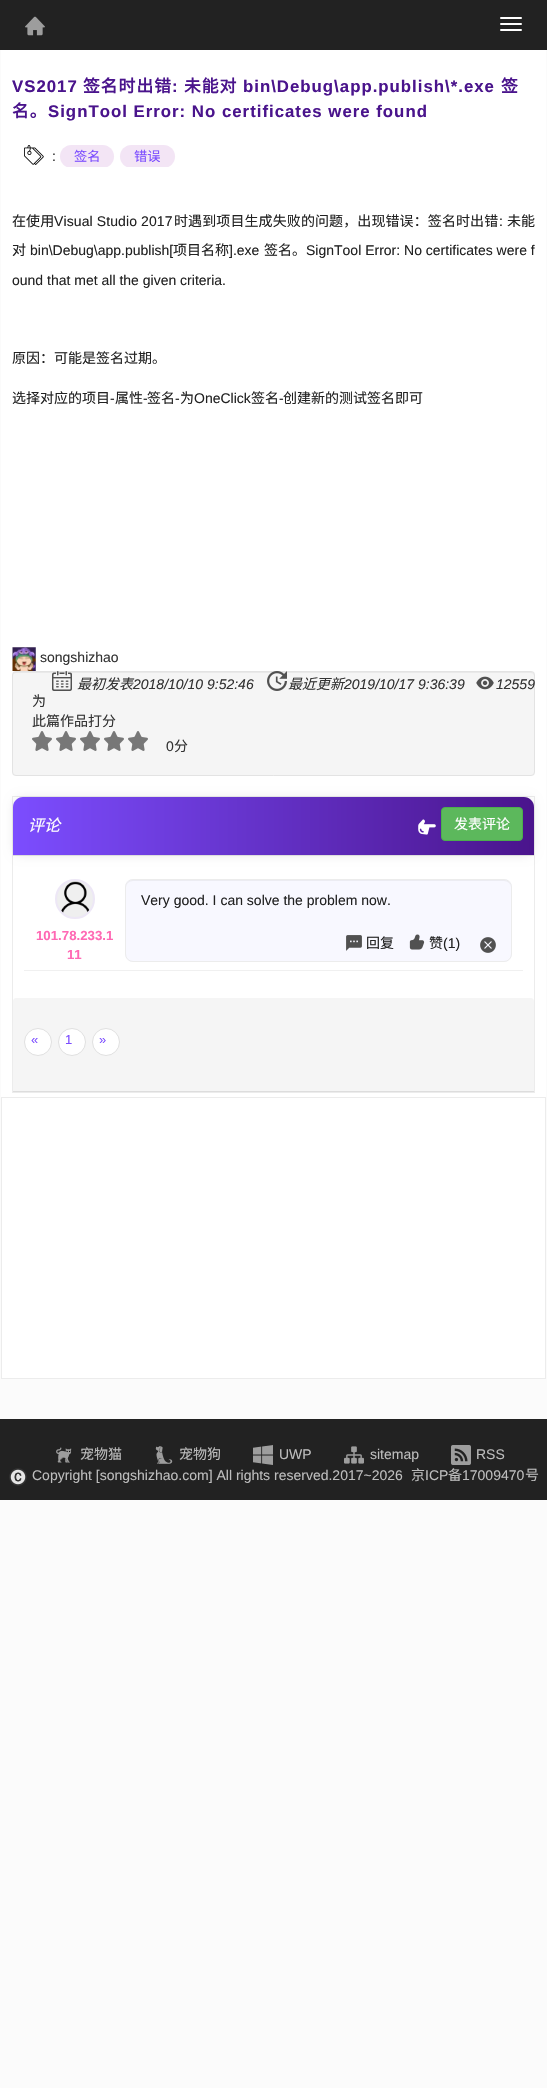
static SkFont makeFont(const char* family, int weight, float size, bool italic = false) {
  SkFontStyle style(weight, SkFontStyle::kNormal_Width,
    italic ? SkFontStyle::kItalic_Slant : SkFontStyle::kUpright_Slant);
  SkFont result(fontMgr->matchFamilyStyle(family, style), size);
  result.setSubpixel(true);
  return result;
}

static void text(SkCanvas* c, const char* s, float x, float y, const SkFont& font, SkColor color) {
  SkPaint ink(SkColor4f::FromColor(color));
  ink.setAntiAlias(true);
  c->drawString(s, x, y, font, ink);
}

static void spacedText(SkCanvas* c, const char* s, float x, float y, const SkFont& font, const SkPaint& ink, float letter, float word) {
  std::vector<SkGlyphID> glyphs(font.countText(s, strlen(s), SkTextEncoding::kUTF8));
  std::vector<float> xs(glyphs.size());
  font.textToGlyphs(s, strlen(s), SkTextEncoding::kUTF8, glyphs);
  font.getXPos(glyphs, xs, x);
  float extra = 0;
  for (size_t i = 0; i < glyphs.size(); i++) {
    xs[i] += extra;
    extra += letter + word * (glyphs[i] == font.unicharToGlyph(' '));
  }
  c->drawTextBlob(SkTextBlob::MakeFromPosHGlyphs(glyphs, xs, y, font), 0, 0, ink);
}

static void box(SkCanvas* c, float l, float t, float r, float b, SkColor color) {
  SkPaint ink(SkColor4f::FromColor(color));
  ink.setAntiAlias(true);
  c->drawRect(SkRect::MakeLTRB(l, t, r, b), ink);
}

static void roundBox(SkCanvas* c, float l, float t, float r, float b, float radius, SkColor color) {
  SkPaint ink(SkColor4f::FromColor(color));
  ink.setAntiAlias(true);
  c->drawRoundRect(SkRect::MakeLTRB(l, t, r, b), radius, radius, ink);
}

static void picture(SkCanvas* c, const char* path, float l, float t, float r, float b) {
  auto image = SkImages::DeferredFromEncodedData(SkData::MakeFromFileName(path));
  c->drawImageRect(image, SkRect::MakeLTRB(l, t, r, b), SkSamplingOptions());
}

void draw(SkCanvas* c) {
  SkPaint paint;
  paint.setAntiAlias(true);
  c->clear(0xfffbfbfb);
  box(c, 0, 0, 547, 50, 0xff222222);
  picture(c, "img_01.png", 25, 16, 45, 36);
  roundBox(c, 500, 17, 522, 19, 1, 0xffffffff);
  roundBox(c, 500, 23, 522, 25, 1, 0xffffffff);
  roundBox(c, 500, 29, 522, 31, 1, 0xffffffff);
  box(c, 1, 50, 546, 1097, 0xffffffff);
  SkFont face1 = makeFont("Liberation Sans", 700, 16.8f);
  paint.setColor(0xff4a148c);
  spacedText(c, "VS2017", 12, 92, face1, paint, 1, 0);
  SkFont face2 = makeFont("Noto Sans CJK SC", 700, 16.8f);
  spacedText(c, "签名时出错", 83, 92, face2, paint, 1, 0);
  spacedText(c, ":", 172, 92, face1, paint, 1, 0);
  spacedText(c, "未能对", 184, 92, face2, paint, 1, 0);
  spacedText(c, "bin\\Debug\\app.publish\\*.exe", 243, 92, face1, paint, 1, 0);
  spacedText(c, "签", 501, 92, face2, paint, 1, 0);
  spacedText(c, "名。", 12, 117, face2, paint, 1, 0);
  spacedText(c, "SignTool Error: No certificates were found", 48, 117, face1, paint, 1, 0);
  picture(c, "img_02.png", 24, 145, 44, 165);
  SkFont face3 = makeFont("Liberation Sans", 400, 14);
  text(c, ":", 52, 161, face3, 0xff333333);
  c->save();
  c->clipRect(SkRect::MakeLTRB(12, 54, 535, 167));
  roundBox(c, 60, 145, 114, 168, 11.5f, 0xfff3e5f5);
  c->restore();
  SkFont face4 = makeFont("Noto Sans CJK SC", 400, 13.25f);
  text(c, "签名", 74, 161, face4, 0xff7c4dff);
  c->save();
  c->clipRect(SkRect::MakeLTRB(12, 54, 535, 167));
  roundBox(c, 120, 145, 175, 168, 11.5f, 0xfff3e5f5);
  c->restore();
  text(c, "错误", 134, 161, face4, 0xff7c4dff);
  SkFont face5 = makeFont("Noto Sans CJK SC", 400, 14);
  paint.setColor(0xff222222);
  spacedText(c, "在使用", 12, 226, face5, paint, 0.1f, 0);
  spacedText(c, "Visual Studio 2017", 54, 226, face3, paint, 0.1f, 0);
  spacedText(c, "时遇到项目生成失败的问题，出现错误：签名时出错", 174, 226, face5, paint, 0.1f, 0);
  spacedText(c, ":", 499, 226, face3, paint, 0.1f, 0);
  spacedText(c, "未能", 507, 226, face5, paint, 0.1f, 0);
  text(c, "对", 12, 255, face5, 0xff222222);
  text(c, "bin\\Debug\\app.publish[", 30, 255, face3, 0xff222222);
  text(c, "项目名称", 173, 255, face5, 0xff222222);
  text(c, "].exe", 229, 255, face3, 0xff222222);
  text(c, "签名。", 264, 255, face5, 0xff222222);
  text(c, "SignTool Error: No certificates were f", 306, 255, face3, 0xff222222);
  text(c, "ound that met all the given criteria.", 12, 285, face3, 0xff222222);
  text(c, "原因：可能是签名过期。", 12, 363, face5, 0xff222222);
  text(c, "选择对应的项目", 12, 403, face5, 0xff222222);
  text(c, "-", 110, 403, face3, 0xff222222);
  text(c, "属性", 115, 403, face5, 0xff222222);
  text(c, "-", 143, 403, face3, 0xff222222);
  text(c, "签名", 147, 403, face5, 0xff222222);
  text(c, "-", 175, 403, face3, 0xff222222);
  text(c, "为", 180, 403, face5, 0xff222222);
  text(c, "OneClick", 194, 403, face3, 0xff222222);
  text(c, "签名", 251, 403, face5, 0xff222222);
  text(c, "-", 279, 403, face3, 0xff222222);
  text(c, "创建新的测试签名即可", 283, 403, face5, 0xff222222);
  picture(c, "img_03.png", 12, 647, 36, 671);
  text(c, "songshizhao", 40, 662, face3, 0xff333333);
  roundBox(c, 12, 671, 535, 776, 4, 0xfff5f5f5);
  paint.setColor(0xffe9e9e9);
  c->drawPath(SkPathBuilder().moveTo(16, 673).lineTo(531, 673).cubicTo(533, 673, 534, 674, 534, 676).lineTo(534, 674).lineTo(532, 672).lineTo(16, 672).cubicTo(14, 672, 13, 674, 13, 676).cubicTo(13, 674, 14, 673, 16, 673).close().detach(), paint);
  paint.setStyle(SkPaint::kStroke_Style);
  paint.setStrokeWidth(1);
  paint.setColor(0xffe3e3e3);
  c->drawRoundRect(SkRect::MakeLTRB(12.5f, 671.5f, 534.5f, 775.5f), 3.5f, 3.5f, paint);
  picture(c, "img_04.png", 52, 671, 72, 691);
  SkFont face6 = makeFont("Noto Sans CJK SC", 400, 14, true);
  text(c, "最初发表", 77, 689, face6, 0xff333333);
  SkFont face7 = makeFont("Liberation Sans", 400, 14, true);
  text(c, "2018/10/10 9:52:46", 133, 689, face7, 0xff333333);
  picture(c, "img_05.png", 267, 671, 287, 691);
  text(c, "最近更新", 288, 689, face6, 0xff333333);
  text(c, "2019/10/17 9:36:39", 344, 689, face7, 0xff333333);
  picture(c, "img_06.png", 476, 676, 494, 690);
  text(c, "12559", 496, 689, face7, 0xff333333);
  text(c, "为", 32, 706, face5, 0xff333333);
  text(c, "此篇作品打分", 32, 726, face5, 0xff333333);
  picture(c, "img_07.png", 32, 731, 52, 751);
  picture(c, "img_07.png", 56, 731, 76, 751);
  picture(c, "img_07.png", 80, 731, 100, 751);
  picture(c, "img_07.png", 104, 731, 124, 751);
  picture(c, "img_07.png", 128, 731, 148, 751);
  text(c, "0", 166, 751, face3, 0xff333333);
  text(c, "分", 174, 751, face5, 0xff333333);
  paint.setColor(0xffececec);
  c->drawRect(SkRect::MakeLTRB(12.5f, 796.5f, 534.5f, 1092.5f), paint);
  paint.setStyle(SkPaint::kFill_Style);
  paint.setColor(0x14000000);
  paint.setMaskFilter(SkMaskFilter::MakeBlur(kNormal_SkBlurStyle, 5));
  c->drawRoundRect(SkRect::MakeLTRB(13, 797, 534, 856), 10, 10, paint);
  paint.setMaskFilter(nullptr);
  {
    const SkColor colors[] = {0xff7c4dff, 0xff4a148c};
    const float stops[] = {0, 1};
    const SkPoint ends[] = {{13, 826}, {534, 826}};
    paint.setShader(SkGradientShader::MakeLinear(ends, colors, stops, 2, SkTileMode::kClamp));
    paint.setAlpha(255);
  }
  c->drawPath(SkPathBuilder().moveTo(23, 797).lineTo(524, 797).cubicTo(529.5f, 797, 534, 801.5f, 534, 807).lineTo(534, 856).lineTo(13, 856).lineTo(13, 807).cubicTo(13, 801.5f, 17.5f, 797, 23, 797).close().detach(), paint);
  box(c, 13, 855, 534, 856, 0xffdddddd);
  SkFont face8 = makeFont("Noto Sans CJK SC", 400, 16, true);
  text(c, "评论", 28, 831, face8, 0xffffffff);
  picture(c, "img_08.png", 418, 819, 436, 835);
  paint.setShader(nullptr);
  paint.setColor(0xff5cb85c);
  c->drawRoundRect(SkRect::MakeLTRB(441.5f, 807.5f, 522.5f, 840.5f), 3.5f, 3.5f, paint);
  paint.setStyle(SkPaint::kStroke_Style);
  paint.setColor(0xff4cae4c);
  c->drawRoundRect(SkRect::MakeLTRB(441.5f, 807.5f, 522.5f, 840.5f), 3.5f, 3.5f, paint);
  text(c, "发表评论", 454, 829, face5, 0xffffffff);
  box(c, 24, 970, 523, 971, 0xfff0f0f0);
  paint.setStyle(SkPaint::kFill_Style);
  paint.setColor(0xffefefef);
  c->drawCircle(75, 899, 19, paint);
  paint.setStyle(SkPaint::kStroke_Style);
  paint.setStrokeWidth(2);
  paint.setColor(0xffede7f6);
  c->drawCircle(75, 899, 19, paint);
  picture(c, "img_09.png", 61, 881, 90, 913);
  SkFont face9 = makeFont("Liberation Sans", 700, 13.25f);
  text(c, "101.78.233.1", 36, 940, face9, 0xffff69b4);
  text(c, "11", 67, 959, face9, 0xffff69b4);
  roundBox(c, 125, 879, 512, 962, 8, 0xfff8f8ff);
  paint.setStyle(SkPaint::kFill_Style);
  paint.setColor(0xffececf2);
  c->drawPath(SkPathBuilder().moveTo(133, 881).lineTo(504, 881).cubicTo(508, 881, 511, 884, 511, 888).cubicTo(511, 884, 509, 880, 504, 880).lineTo(133, 880).cubicTo(128, 880, 126, 884, 126, 888).cubicTo(126, 884, 129, 881, 133, 881).close().detach(), paint);
  paint.setStyle(SkPaint::kStroke_Style);
  paint.setStrokeWidth(1);
  paint.setColor(0xffececec);
  c->drawRoundRect(SkRect::MakeLTRB(125.5f, 879.5f, 511.5f, 961.5f), 7.5f, 7.5f, paint);
  text(c, "Very good. I can solve the problem now.", 141, 905, face3, 0xff222222);
  picture(c, "img_10.png", 346, 935, 362, 951);
  text(c, "回复", 366, 948, face5, 0xff222222);
  picture(c, "img_11.png", 409, 934, 425, 950);
  text(c, "赞", 429, 948, face5, 0xff222222);
  text(c, "(1)", 443, 948, face3, 0xff222222);
  picture(c, "img_12.png", 480, 937, 496, 953);
  paint.setStyle(SkPaint::kFill_Style);
  paint.setColor(0xfff5f5f5);
  c->drawPath(SkPathBuilder().moveTo(16, 998).lineTo(531, 998).cubicTo(532.5f, 998, 534, 999.5f, 534, 1001).lineTo(534, 1092).lineTo(13, 1092).lineTo(13, 1001).cubicTo(13, 999.5f, 14.5f, 998, 16, 998).close().detach(), paint);
  box(c, 13, 1091, 534, 1092, 0xffdddddd);
  paint.setColor(0xffffffff);
  c->drawCircle(38, 1042, 13.5f, paint);
  paint.setStyle(SkPaint::kStroke_Style);
  paint.setColor(0xffe0e0e0);
  c->drawCircle(38, 1042, 13.5f, paint);
  SkFont face10 = makeFont("Liberation Sans", 400, 13);
  text(c, "«", 31, 1044, face10, 0xff7c4dff);
  paint.setStyle(SkPaint::kFill_Style);
  paint.setColor(0xffffffff);
  c->drawCircle(72, 1042, 13.5f, paint);
  paint.setStyle(SkPaint::kStroke_Style);
  paint.setColor(0xffe0e0e0);
  c->drawCircle(72, 1042, 13.5f, paint);
  text(c, "1", 65, 1044, face10, 0xff7c4dff);
  paint.setStyle(SkPaint::kFill_Style);
  paint.setColor(0xffffffff);
  c->drawCircle(106, 1042, 13.5f, paint);
  paint.setStyle(SkPaint::kStroke_Style);
  paint.setColor(0xffe0e0e0);
  c->drawCircle(106, 1042, 13.5f, paint);
  text(c, "»", 99, 1044, face10, 0xff7c4dff);
  paint.setStyle(SkPaint::kFill_Style);
  paint.setColor(0xffffffff);
  c->drawRect(SkRect::MakeLTRB(1.5f, 1097.5f, 545.5f, 1378.5f), paint);
  paint.setStyle(SkPaint::kStroke_Style);
  paint.setColor(0xffececec);
  c->drawRect(SkRect::MakeLTRB(1.5f, 1097.5f, 545.5f, 1378.5f), paint);
  box(c, 0, 1419, 547, 1500, 0xff222222);
  picture(c, "img_13.png", 56, 1447, 72, 1463);
  text(c, "宠物猫", 80, 1459, face5, 0xffbdbdbd);
  picture(c, "img_14.png", 155, 1446, 173, 1464);
  text(c, "宠物狗", 179, 1459, face5, 0xffbdbdbd);
  picture(c, "img_15.png", 253, 1445, 273, 1465);
  text(c, "UWP", 279, 1459, face3, 0xffbdbdbd);
  picture(c, "img_16.png", 344, 1446, 364, 1464);
  text(c, "sitemap", 370, 1459, face3, 0xffbdbdbd);
  picture(c, "img_17.png", 451, 1445, 471, 1465);
  text(c, "RSS", 476, 1459, face3, 0xffbdbdbd);
  picture(c, "img_18.png", 9, 1468, 27, 1486);
  text(c, "Copyright [songshizhao.com] All rights reserved.2017~2026", 32, 1480, face3, 0xffbdbdbd);
  text(c, "京", 411, 1480, face5, 0xffbdbdbd);
  text(c, "ICP", 425, 1480, face3, 0xffbdbdbd);
  text(c, "备", 448, 1480, face5, 0xffbdbdbd);
  text(c, "17009470", 462, 1480, face3, 0xffbdbdbd);
  text(c, "号", 525, 1480, face5, 0xffbdbdbd);
}
